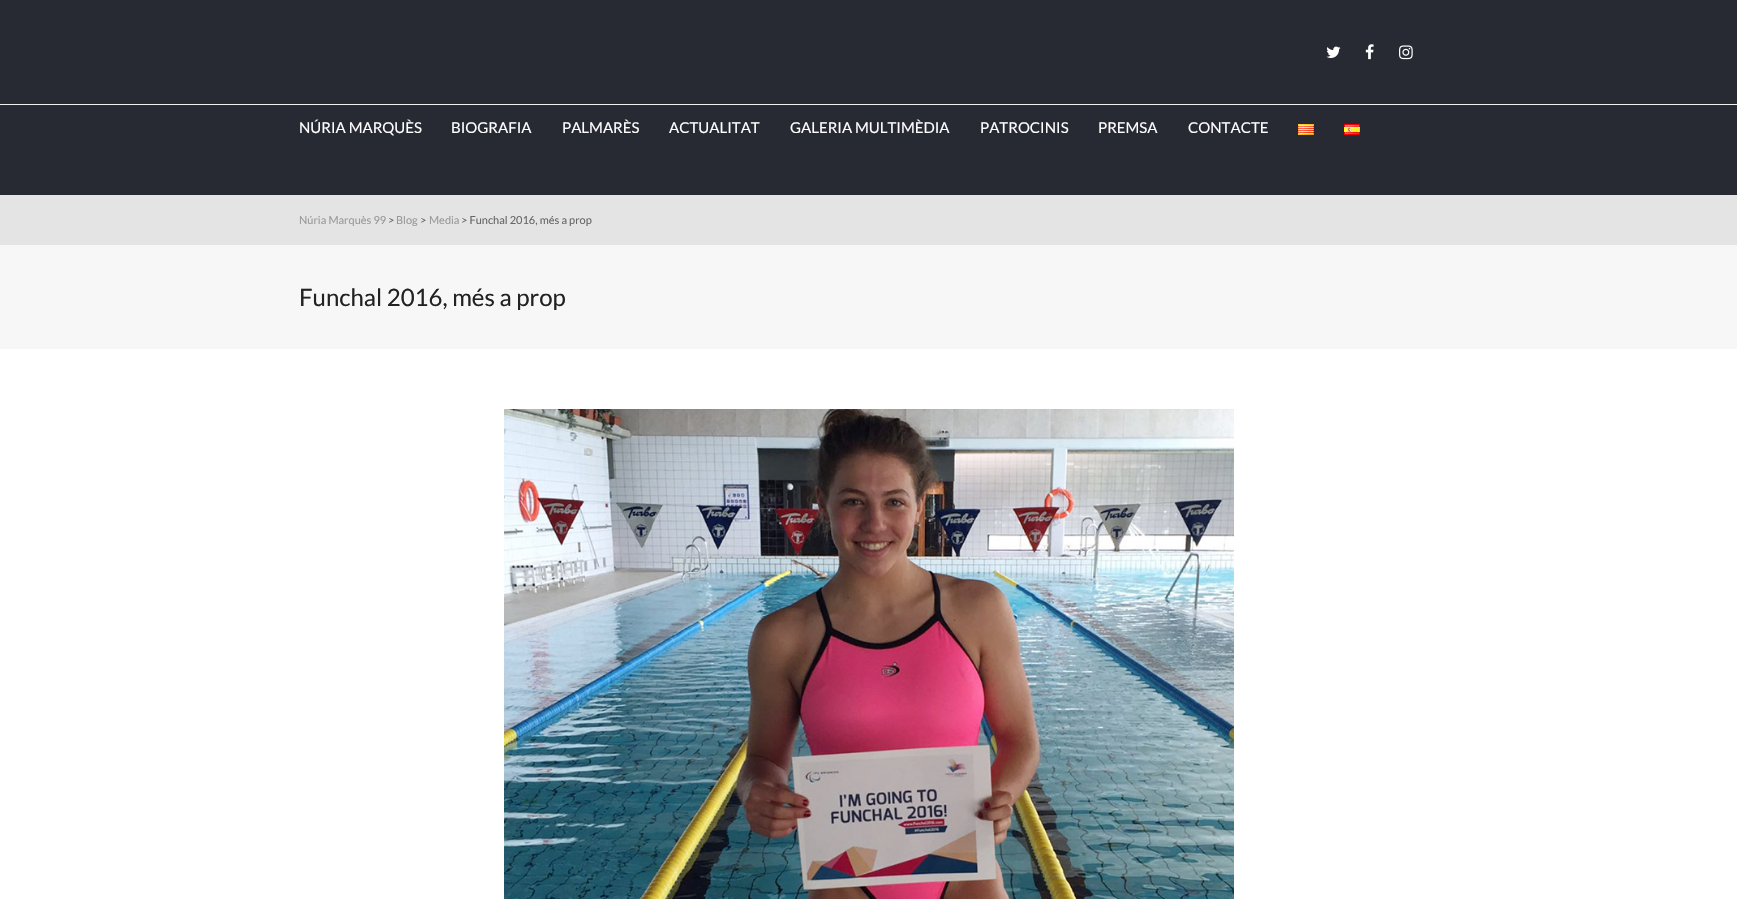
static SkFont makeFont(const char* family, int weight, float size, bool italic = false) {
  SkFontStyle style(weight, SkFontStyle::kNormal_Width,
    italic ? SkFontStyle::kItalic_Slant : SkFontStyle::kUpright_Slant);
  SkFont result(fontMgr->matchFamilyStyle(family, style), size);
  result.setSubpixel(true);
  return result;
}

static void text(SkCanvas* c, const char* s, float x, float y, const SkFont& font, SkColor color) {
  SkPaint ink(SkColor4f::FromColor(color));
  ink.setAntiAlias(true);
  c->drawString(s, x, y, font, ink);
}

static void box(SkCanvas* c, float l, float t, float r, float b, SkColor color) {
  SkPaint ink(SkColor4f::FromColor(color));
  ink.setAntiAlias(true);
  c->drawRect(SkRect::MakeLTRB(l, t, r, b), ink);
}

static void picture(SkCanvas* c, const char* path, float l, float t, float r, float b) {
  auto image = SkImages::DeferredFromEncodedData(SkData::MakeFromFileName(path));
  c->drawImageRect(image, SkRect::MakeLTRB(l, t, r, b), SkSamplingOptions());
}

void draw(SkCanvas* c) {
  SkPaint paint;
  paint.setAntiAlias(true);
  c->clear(0xffffffff);
  box(c, 0, 0, 1737, 195, 0xff282a33);
  picture(c, "img_01.png", 1326, 46, 1341, 58);
  picture(c, "img_02.png", 1365, 44, 1374, 60);
  picture(c, "img_03.png", 1399, 45, 1413, 60);
  box(c, 0, 104, 1737, 105, 0xfff0f0f0);
  SkFont face1 = makeFont("Lato", 400, 15);
  text(c, "NÚRIA MARQUÈS", 299, 133, face1, 0xffffffff);
  text(c, "BIOGRAFIA", 451, 133, face1, 0xffffffff);
  text(c, "PALMARÈS", 562, 133, face1, 0xffffffff);
  text(c, "ACTUALITAT", 669, 133, face1, 0xffffffff);
  text(c, "GALERIA MULTIMÈDIA", 790, 133, face1, 0xffffffff);
  text(c, "PATROCINIS", 980, 133, face1, 0xffffffff);
  text(c, "PREMSA", 1098, 133, face1, 0xffffffff);
  text(c, "CONTACTE", 1188, 133, face1, 0xffffffff);
  picture(c, "img_04.png", 1298, 124, 1314, 135);
  picture(c, "img_05.png", 1344, 124, 1360, 135);
  box(c, 0, 195, 1737, 245, 0xffe4e4e4);
  SkFont face2 = makeFont("Lato", 400, 11);
  text(c, "Núria Marquès 99", 299, 224, face2, 0xff999999);
  text(c, ">", 388, 224, face2, 0xff666666);
  text(c, "Blog", 396, 224, face2, 0xff999999);
  text(c, ">", 420, 224, face2, 0xff666666);
  text(c, "Media", 429, 224, face2, 0xff999999);
  text(c, "> Funchal 2016, més a prop", 461, 224, face2, 0xff666666);
  box(c, 0, 245, 1737, 349, 0xfff7f7f7);
  SkFont face3 = makeFont("Lato", 400, 24);
  text(c, "Funchal 2016, més a prop", 299, 306, face3, 0xff222222);
  picture(c, "img_06.png", 504, 409, 1234, 899);
}
